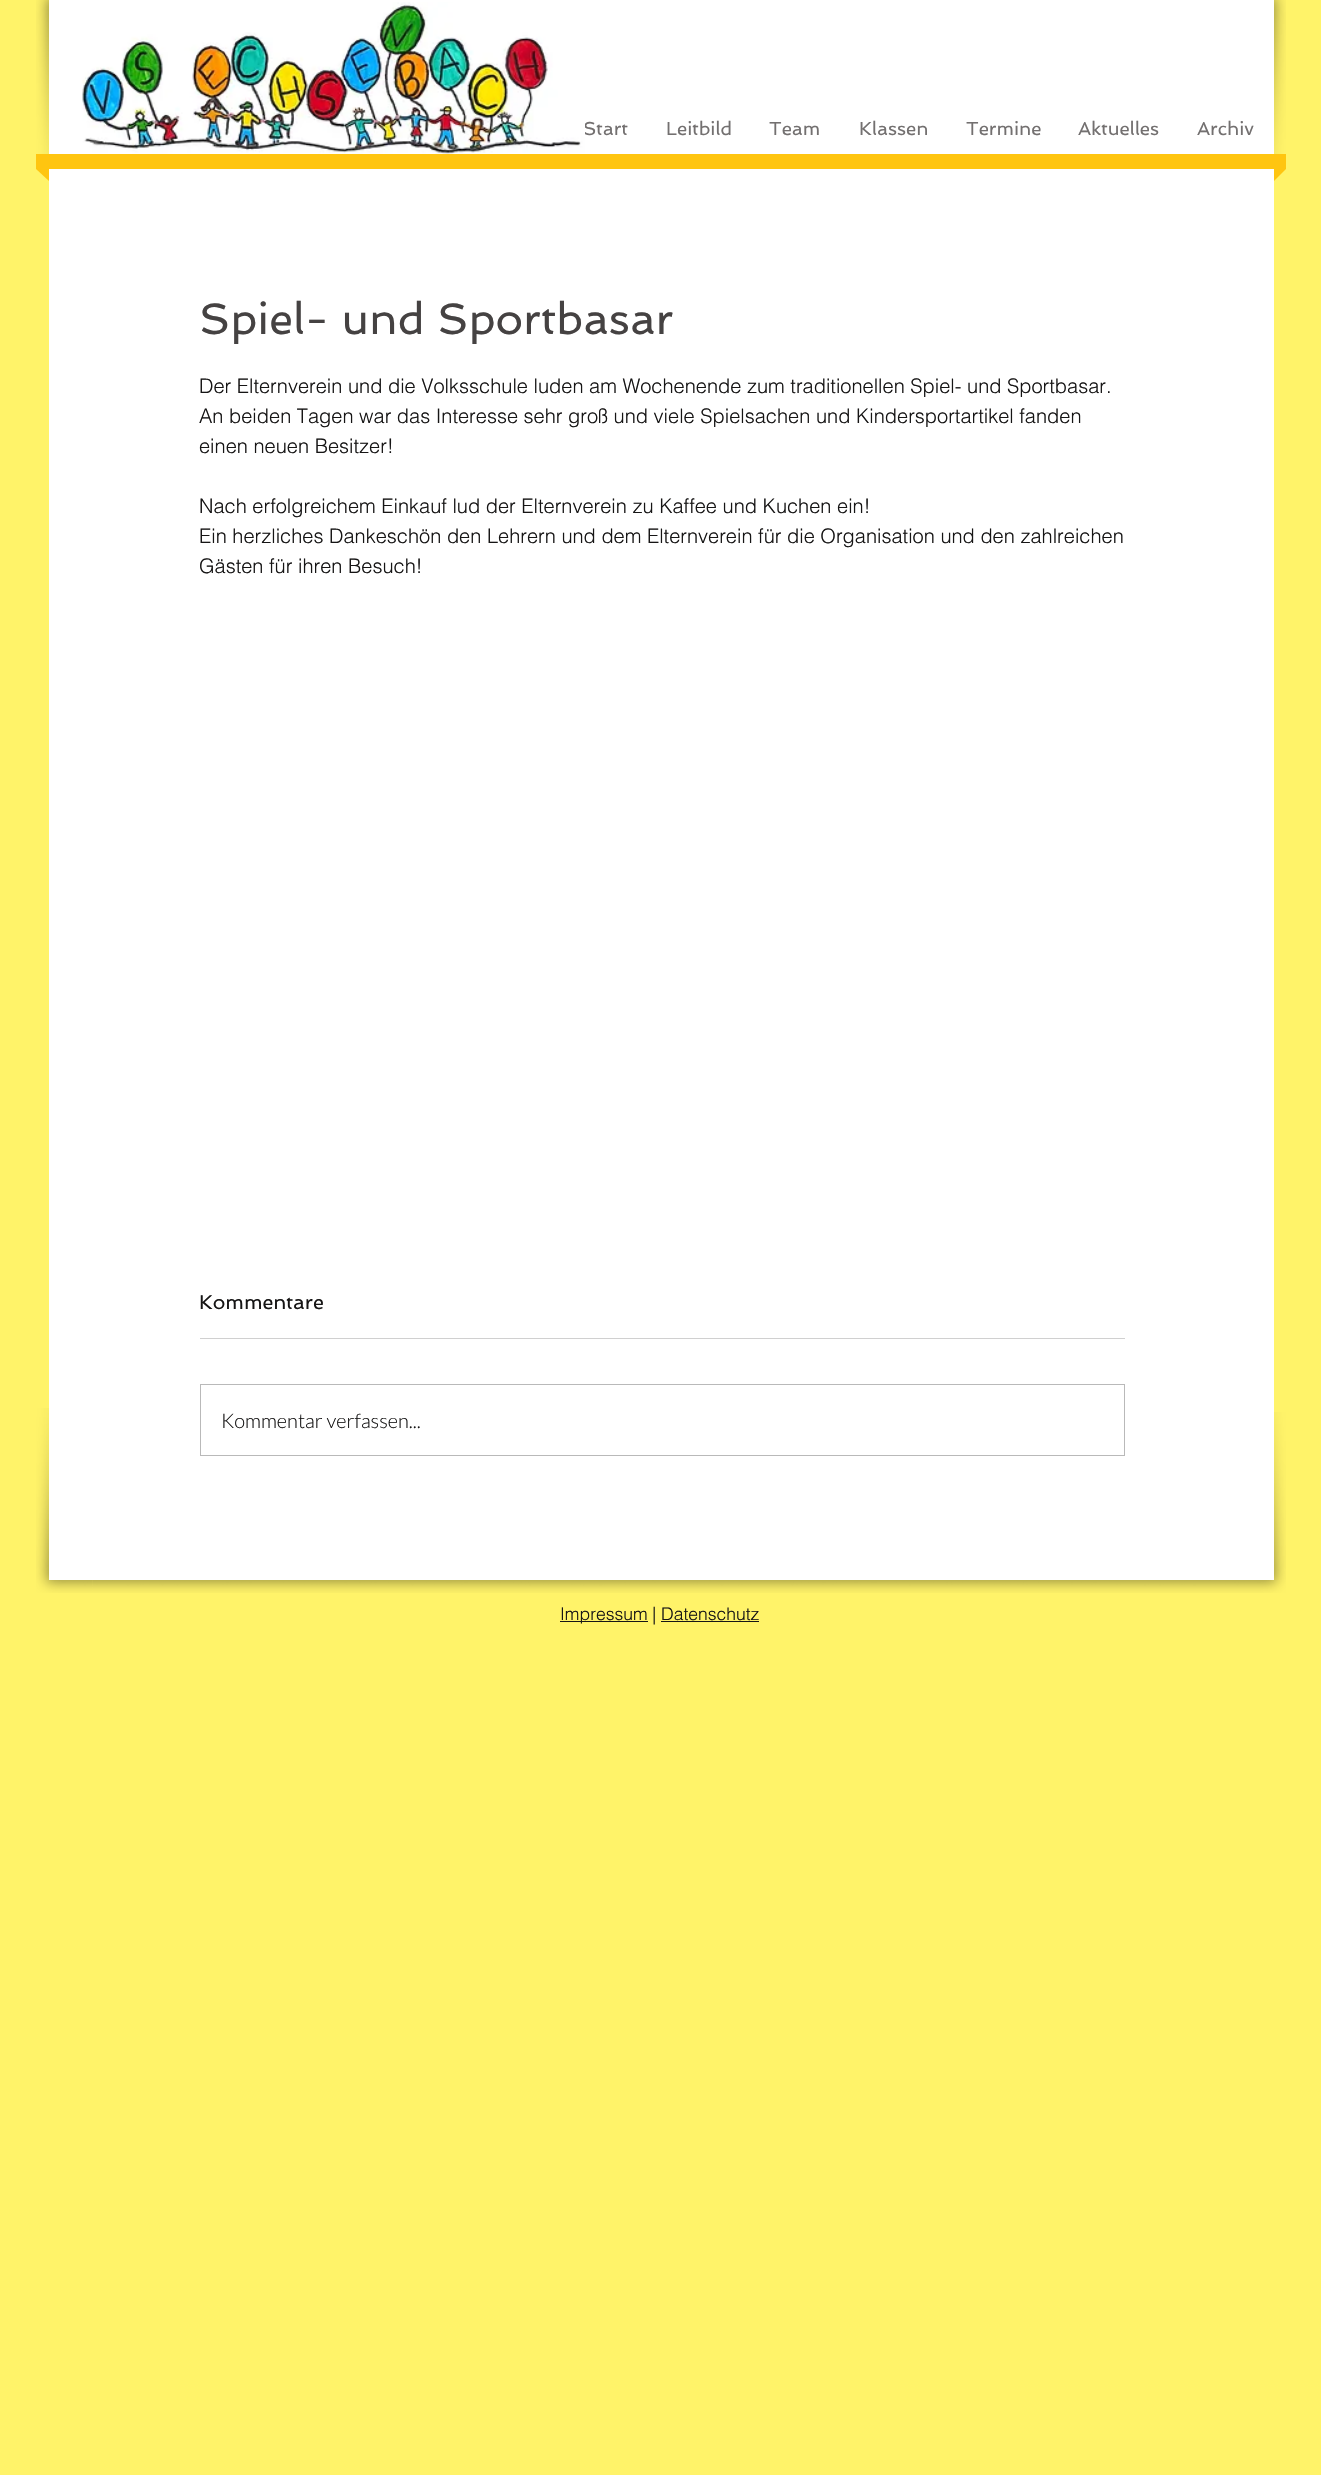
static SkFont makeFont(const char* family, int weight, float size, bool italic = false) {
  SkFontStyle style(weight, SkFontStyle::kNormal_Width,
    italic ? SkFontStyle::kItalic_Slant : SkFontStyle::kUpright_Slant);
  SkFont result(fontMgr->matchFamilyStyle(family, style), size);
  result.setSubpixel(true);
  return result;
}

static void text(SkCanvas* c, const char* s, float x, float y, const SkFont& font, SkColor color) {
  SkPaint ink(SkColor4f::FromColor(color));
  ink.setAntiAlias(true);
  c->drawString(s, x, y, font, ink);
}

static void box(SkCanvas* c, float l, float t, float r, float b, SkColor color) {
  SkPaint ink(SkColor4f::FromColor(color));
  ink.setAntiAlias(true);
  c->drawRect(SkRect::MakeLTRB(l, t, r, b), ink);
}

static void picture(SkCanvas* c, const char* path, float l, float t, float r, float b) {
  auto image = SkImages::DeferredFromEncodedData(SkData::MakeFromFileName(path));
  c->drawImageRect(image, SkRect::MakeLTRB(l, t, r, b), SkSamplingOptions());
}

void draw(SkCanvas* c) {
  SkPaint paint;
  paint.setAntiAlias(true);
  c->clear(0xfffff369);
  picture(c, "img_01.png", 36, 0, 49, 154);
  box(c, 49, 0, 1274, 154, 0xffffffff);
  picture(c, "img_02.png", 1274, 0, 1286, 154);
  SkFont face1 = makeFont("Spinnaker", 400, 18.75f);
  text(c, "Start", 583, 135, face1, 0xff737070);
  text(c, "Leitbild", 666, 135, face1, 0xff737070);
  text(c, "Team", 769, 135, face1, 0xff737070);
  text(c, "Klassen", 859, 135, face1, 0xff737070);
  text(c, "Termine", 966, 135, face1, 0xff737070);
  text(c, "Aktuelles", 1078, 135, face1, 0xff737070);
  text(c, "Archiv", 1197, 135, face1, 0xff737070);
  picture(c, "img_03.png", 36, 1408, 93, 1593);
  picture(c, "img_05.png", 1230, 1412, 1286, 1593);
  box(c, 49, 169, 1274, 1580, 0xffffffff);
  picture(c, "img_04.png", 92, 1580, 1230, 1593);
  picture(c, "img_06.png", 75, 2, 585, 154);
  box(c, 36, 154, 1286, 169, 0xffffc510);
  paint.setColor(0xffffc510);
  c->drawPath(SkPathBuilder().moveTo(36, 169).lineTo(49, 169).lineTo(49, 181).close().detach(), paint);
  c->drawPath(SkPathBuilder().moveTo(1274, 169).lineTo(1286, 169).lineTo(1274, 181).close().detach(), paint);
  SkFont face2 = makeFont("Spinnaker", 400, 43.75f);
  text(c, "Spiel- und Sportbasar", 199, 334, face2, 0xff454242);
  SkFont face3 = makeFont("helvetica", 300, 20);
  text(c, "Der Elternverein und die Volksschule luden am Wochenende zum traditionellen Spiel- und Sportbasar.", 199, 393, face3, 0xff161515);
  text(c, "An beiden Tagen war das Interesse sehr groß und viele Spielsachen und Kindersportartikel fanden", 199, 423, face3, 0xff161515);
  text(c, "einen neuen Besitzer!", 199, 453, face3, 0xff161515);
  text(c, "Nach erfolgreichem Einkauf lud der Elternverein zu Kaffee und Kuchen ein!", 199, 513, face3, 0xff161515);
  text(c, "Ein herzliches Dankeschön den Lehrern und dem Elternverein für die Organisation und den zahlreichen", 199, 543, face3, 0xff161515);
  text(c, "Gästen für ihren Besuch!", 199, 573, face3, 0xff161515);
  SkFont face4 = makeFont("Spinnaker", 400, 20);
  text(c, "Kommentare", 199, 1309, face4, 0xff161515);
  box(c, 200, 1338, 1125, 1339, 0xffd0d0d0);
  paint.setStyle(SkPaint::kStroke_Style);
  paint.setStrokeWidth(1);
  paint.setColor(0xffb9b9b9);
  c->drawRect(SkRect::MakeLTRB(200.5f, 1384.5f, 1124.5f, 1455.5f), paint);
  SkFont face5 = makeFont("Lato", 300, 20);
  text(c, "Kommentar verfassen...", 221, 1428, face5, 0xff161515);
  box(c, 560, 1621, 648, 1622, 0xff161515);
  SkFont face6 = makeFont("helvetica", 300, 17.5f);
  text(c, "Impressum | Datenschutz", 560, 1620, face6, 0xff161515);
  box(c, 661, 1621, 759, 1622, 0xff161515);
}
